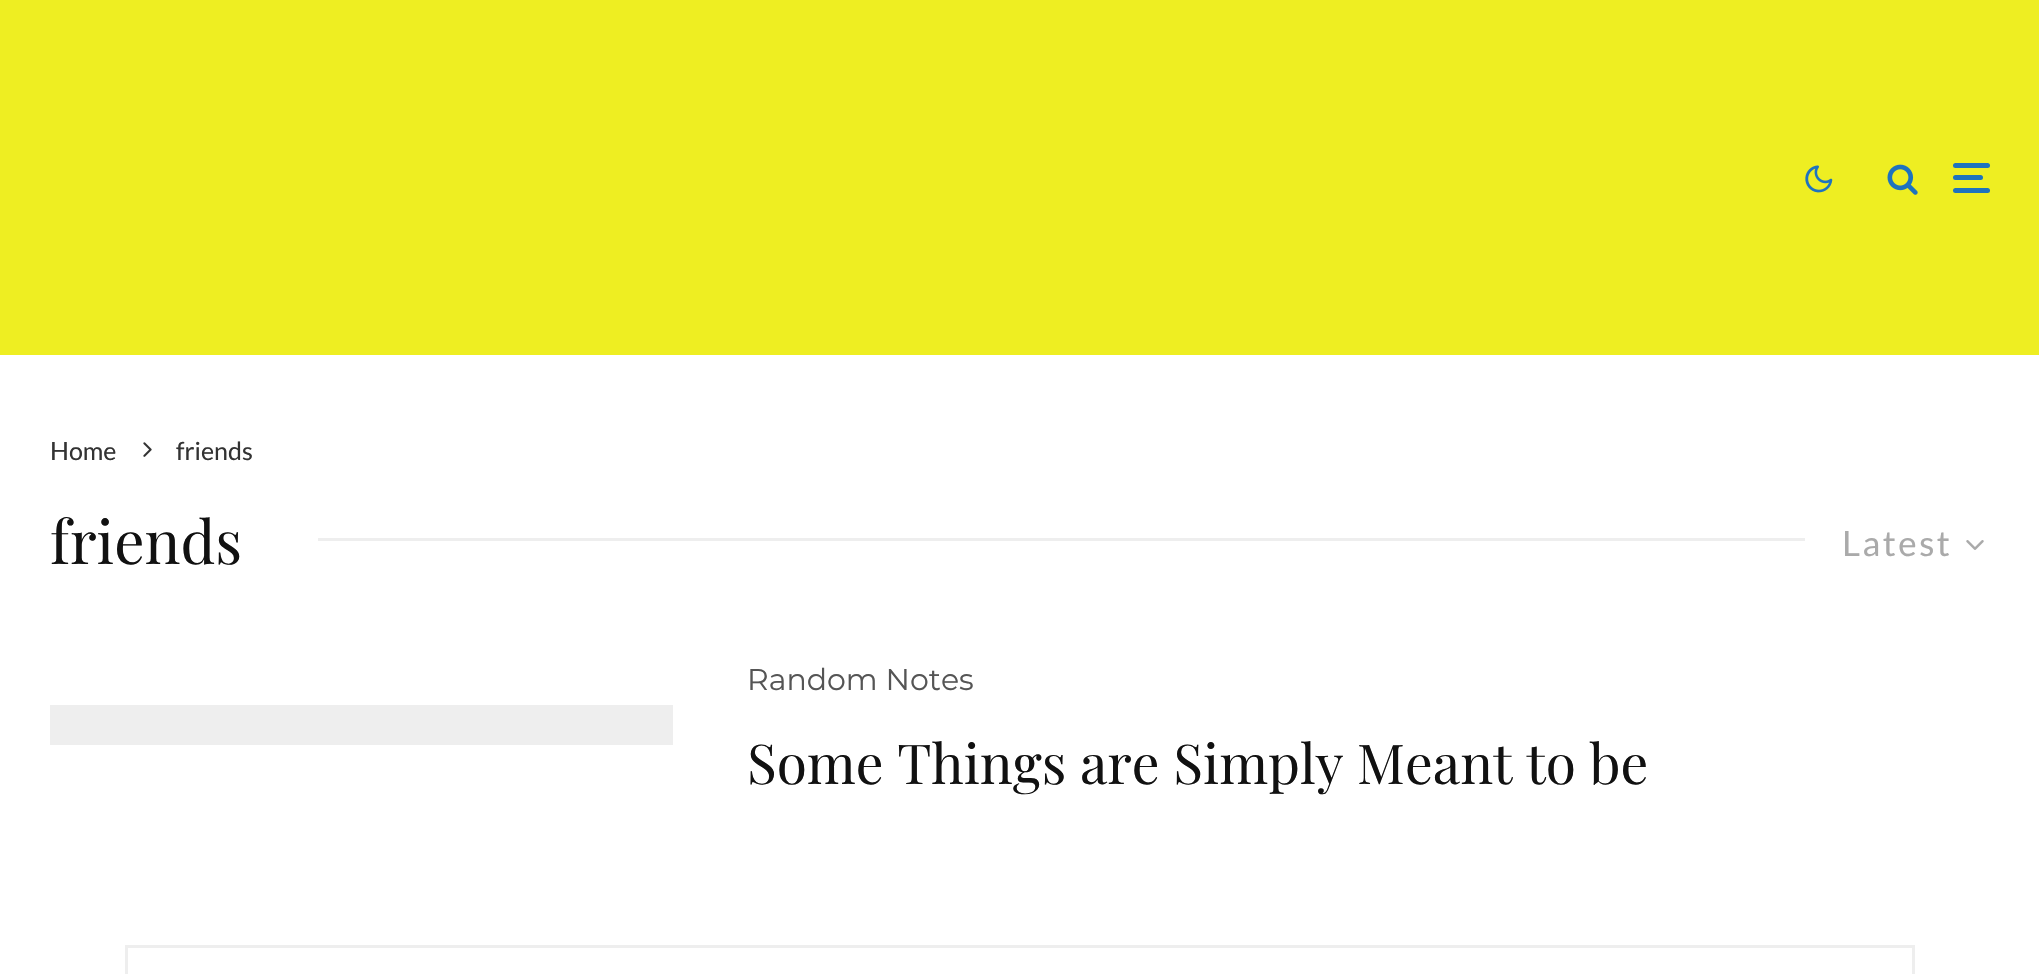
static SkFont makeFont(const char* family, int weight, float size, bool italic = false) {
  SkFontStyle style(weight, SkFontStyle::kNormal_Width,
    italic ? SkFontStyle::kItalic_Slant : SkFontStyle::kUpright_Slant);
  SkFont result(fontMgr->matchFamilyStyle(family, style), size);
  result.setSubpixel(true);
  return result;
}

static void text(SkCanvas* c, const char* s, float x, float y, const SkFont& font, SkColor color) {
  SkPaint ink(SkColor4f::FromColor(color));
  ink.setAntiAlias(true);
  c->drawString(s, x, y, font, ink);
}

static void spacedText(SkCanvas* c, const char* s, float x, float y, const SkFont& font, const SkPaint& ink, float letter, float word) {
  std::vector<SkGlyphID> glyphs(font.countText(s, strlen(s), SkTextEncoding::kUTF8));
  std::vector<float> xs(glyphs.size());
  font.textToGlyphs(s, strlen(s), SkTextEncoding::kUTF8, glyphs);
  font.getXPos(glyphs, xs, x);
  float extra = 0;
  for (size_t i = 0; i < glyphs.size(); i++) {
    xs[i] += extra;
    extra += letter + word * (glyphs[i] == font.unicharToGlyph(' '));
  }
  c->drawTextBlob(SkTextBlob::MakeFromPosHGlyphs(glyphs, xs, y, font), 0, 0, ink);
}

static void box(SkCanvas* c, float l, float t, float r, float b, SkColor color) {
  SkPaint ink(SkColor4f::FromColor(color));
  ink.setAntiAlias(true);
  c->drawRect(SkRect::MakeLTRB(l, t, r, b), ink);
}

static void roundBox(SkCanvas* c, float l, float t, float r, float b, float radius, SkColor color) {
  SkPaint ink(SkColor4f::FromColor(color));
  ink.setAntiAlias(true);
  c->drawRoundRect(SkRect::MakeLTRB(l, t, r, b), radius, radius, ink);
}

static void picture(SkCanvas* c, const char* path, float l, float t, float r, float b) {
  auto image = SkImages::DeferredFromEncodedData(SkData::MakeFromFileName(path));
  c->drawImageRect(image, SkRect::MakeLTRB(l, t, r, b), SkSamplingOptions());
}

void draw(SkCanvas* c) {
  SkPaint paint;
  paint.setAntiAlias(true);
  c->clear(0xffffffff);
  box(c, 0, 0, 2039, 355, 0xffeeee22);
  picture(c, "img_01.png", 1805, 165, 1833, 193);
  picture(c, "img_02.png", 1887, 164, 1918, 195);
  roundBox(c, 1953, 175, 1983, 180, 2.5f, 0xff1e73be);
  roundBox(c, 1953, 163, 1990, 168, 2.5f, 0xff1e73be);
  roundBox(c, 1953, 188, 1990, 193, 2.5f, 0xff1e73be);
  SkFont face1 = makeFont("Lato", 400, 25);
  text(c, "Home", 50, 460, face1, 0xff333333);
  picture(c, "img_03.png", 143, 442, 152, 457);
  text(c, "friends", 176, 460, face1, 0xff333333);
  SkFont face2 = makeFont("Playfair Display", 400, 60);
  text(c, "friends", 50, 564, face2, 0xff111111);
  box(c, 318, 538, 1805, 541, 0xffeeeeee);
  SkFont face3 = makeFont("Lato", 400, 35);
  paint.setColor(0xffaaaaaa);
  spacedText(c, "Latest", 1842, 556, face3, paint, 2.5f, 0);
  picture(c, "img_04.png", 1966, 540, 1984, 550);
  box(c, 50, 705, 673, 745, 0xffeeeeee);
  SkFont face4 = makeFont("Montserrat", 400, 30);
  text(c, "Random Notes", 747, 690, face4, 0xff555555);
  SkFont face5 = makeFont("Playfair Display", 400, 55);
  text(c, "Some Things are Simply Meant to be", 747, 784, face5, 0xff111111);
  paint.setStyle(SkPaint::kStroke_Style);
  paint.setStrokeWidth(3);
  paint.setColor(0xffeeeeee);
  c->drawRect(SkRect::MakeLTRB(126.5f, 946.5f, 1913.5f, 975.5f), paint);
}
